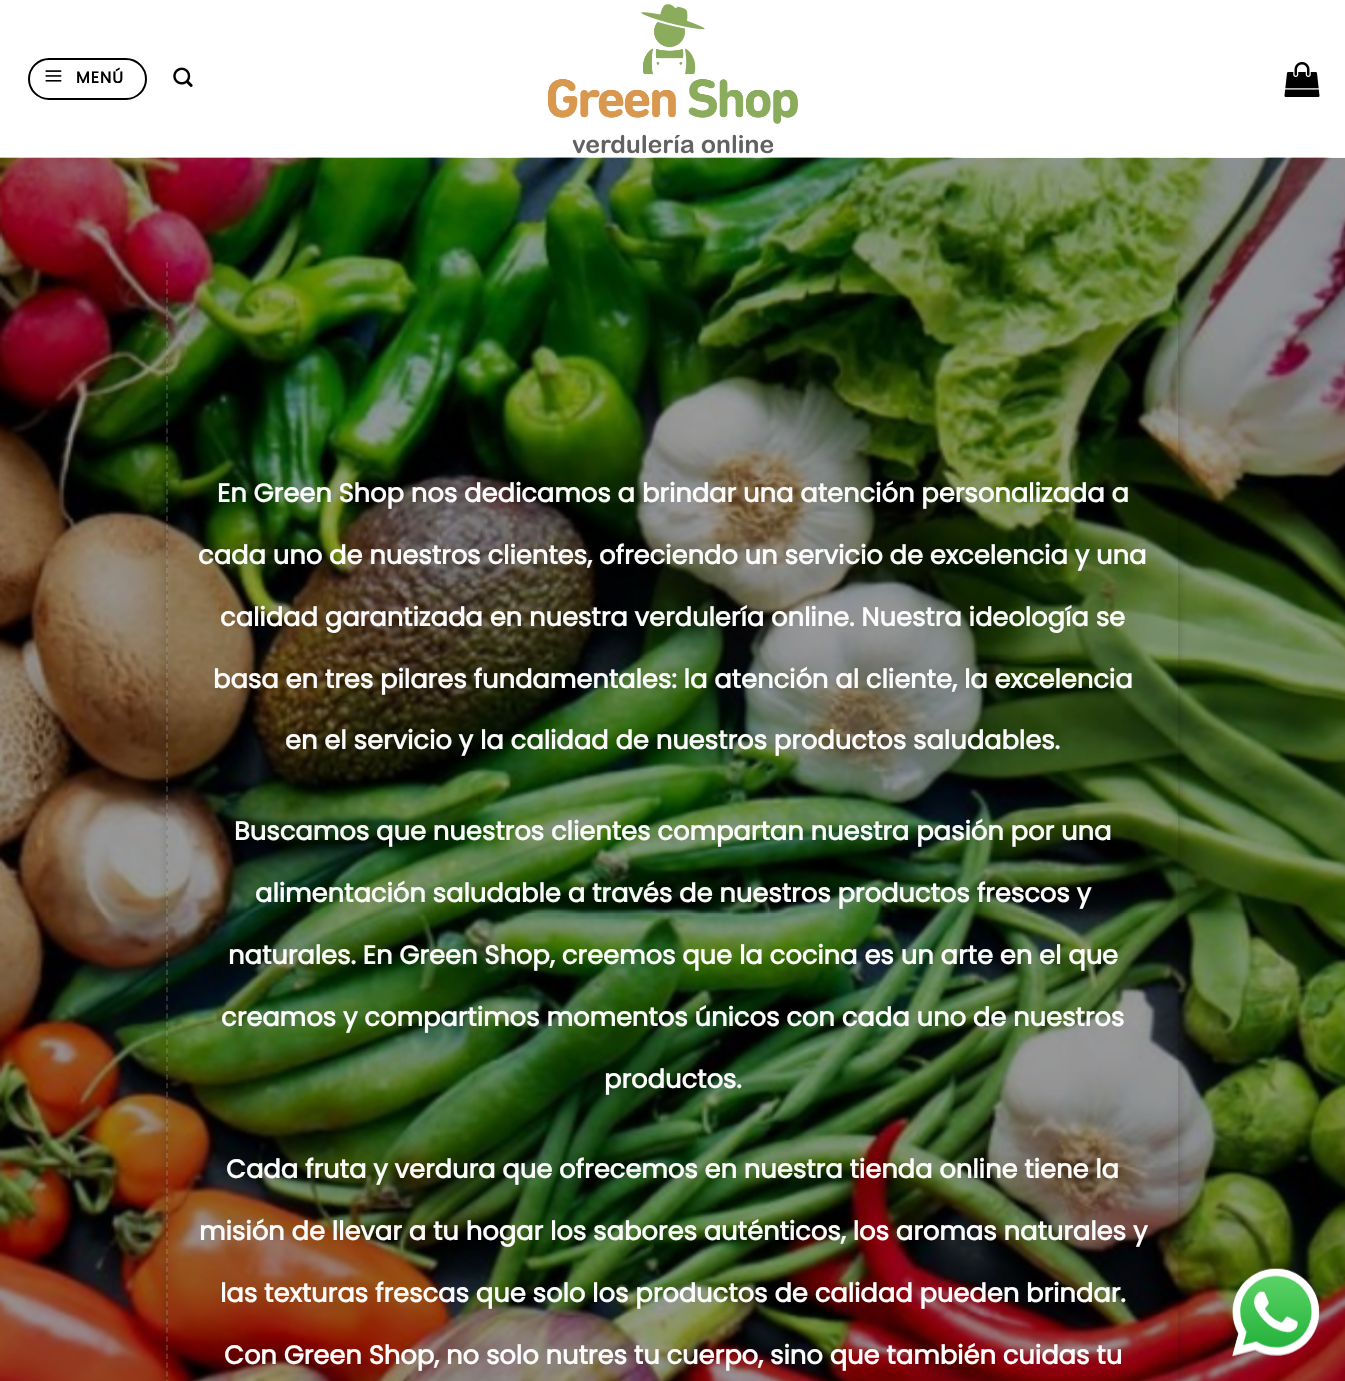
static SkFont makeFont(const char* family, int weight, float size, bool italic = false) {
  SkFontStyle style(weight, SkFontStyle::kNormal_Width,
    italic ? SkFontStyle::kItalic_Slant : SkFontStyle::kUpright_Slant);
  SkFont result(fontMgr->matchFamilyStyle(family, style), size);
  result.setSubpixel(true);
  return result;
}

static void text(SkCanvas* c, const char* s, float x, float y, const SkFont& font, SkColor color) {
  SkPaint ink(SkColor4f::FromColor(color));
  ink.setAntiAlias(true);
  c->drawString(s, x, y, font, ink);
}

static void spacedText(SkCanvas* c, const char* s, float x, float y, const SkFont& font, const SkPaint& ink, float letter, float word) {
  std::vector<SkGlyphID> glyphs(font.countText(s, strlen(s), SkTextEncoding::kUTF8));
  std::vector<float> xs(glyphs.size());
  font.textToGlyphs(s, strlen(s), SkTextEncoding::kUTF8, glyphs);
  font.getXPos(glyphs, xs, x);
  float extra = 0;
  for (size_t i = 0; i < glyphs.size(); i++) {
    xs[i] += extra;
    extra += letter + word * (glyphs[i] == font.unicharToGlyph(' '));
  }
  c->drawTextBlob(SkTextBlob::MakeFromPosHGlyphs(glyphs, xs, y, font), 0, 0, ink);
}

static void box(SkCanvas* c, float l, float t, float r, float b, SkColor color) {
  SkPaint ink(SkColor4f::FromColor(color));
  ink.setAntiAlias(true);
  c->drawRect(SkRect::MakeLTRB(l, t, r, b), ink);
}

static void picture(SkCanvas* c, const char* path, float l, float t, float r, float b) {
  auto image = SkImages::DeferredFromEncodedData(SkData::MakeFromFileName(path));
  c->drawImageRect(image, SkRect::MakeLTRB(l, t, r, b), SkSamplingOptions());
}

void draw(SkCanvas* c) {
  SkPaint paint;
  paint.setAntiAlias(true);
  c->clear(0xffffffff);
  paint.setStyle(SkPaint::kStroke_Style);
  paint.setStrokeWidth(2);
  paint.setColor(0xff000000);
  c->drawRoundRect(SkRect::MakeLTRB(29, 59, 146, 99), 20, 20, paint);
  picture(c, "img_01.png", 45, 70, 62, 82);
  SkFont face1 = makeFont("Poppins", 700, 16);
  paint.setStyle(SkPaint::kFill_Style);
  spacedText(c, "MENÚ", 76, 83, face1, paint, 1, 0);
  picture(c, "img_02.png", 173, 67, 193, 87);
  picture(c, "img_03.png", 548, 4, 798, 154);
  picture(c, "img_04.png", 1284, 62, 1320, 97);
  picture(c, "img_05.png", 0, 157, 1345, 1381);
  box(c, 0, 157, 1345, 158, 0x8fffffff);
  paint.setStyle(SkPaint::kStroke_Style);
  paint.setStrokeWidth(1.8f);
  paint.setColor(0x33ffffff);
  paint.setPathEffect(SkDashPathEffect::Make({{5.25f, 3.48f}}, 0));
  c->drawPath(SkPathBuilder().moveTo(167, 262.5f).lineTo(167, 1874).detach(), paint);
  paint.setPathEffect(nullptr);
  c->save();
  c->clipRect(SkRect::MakeLTRB(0, 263, 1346, 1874));
  c->clipPath(SkPathBuilder(SkPathFillType::kEvenOdd).moveTo(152, 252).lineTo(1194, 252).lineTo(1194, 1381).lineTo(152, 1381).close().moveTo(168, 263).lineTo(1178, 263).lineTo(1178, 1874).lineTo(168, 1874).close().detach(), true);
  paint.setStyle(SkPaint::kFill_Style);
  paint.setColor(0x3b000000);
  paint.setMaskFilter(SkMaskFilter::MakeBlur(kNormal_SkBlurStyle, 5));
  c->drawRect(SkRect::MakeLTRB(168, 268, 1178, 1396), paint);
  paint.setMaskFilter(nullptr);
  c->restore();
  SkFont face2 = makeFont("Poppins", 700, 25.75f);
  text(c, "En Green Shop nos dedicamos a brindar una atención personalizada a", 217, 502, face2, 0xfffcfcfc);
  text(c, "cada uno de nuestros clientes, ofreciendo un servicio de excelencia y una", 198, 564, face2, 0xfffcfcfc);
  text(c, "calidad garantizada en nuestra verdulería online. Nuestra ideología se", 220, 626, face2, 0xfffcfcfc);
  text(c, "basa en tres pilares fundamentales: la atención al cliente, la excelencia", 213, 688, face2, 0xfffcfcfc);
  text(c, "en el servicio y la calidad de nuestros productos saludables.", 285, 749, face2, 0xfffcfcfc);
  text(c, "Buscamos que nuestros clientes compartan nuestra pasión por una", 234, 840, face2, 0xfffcfcfc);
  text(c, "alimentación saludable a través de nuestros productos frescos y", 255, 902, face2, 0xfffcfcfc);
  text(c, "naturales. En Green Shop, creemos que la cocina es un arte en el que", 228, 964, face2, 0xfffcfcfc);
  text(c, "creamos y compartimos momentos únicos con cada uno de nuestros", 221, 1026, face2, 0xfffcfcfc);
  text(c, "productos.", 604, 1088, face2, 0xfffcfcfc);
  text(c, "Cada fruta y verdura que ofrecemos en nuestra tienda online tiene la", 226, 1178, face2, 0xfffcfcfc);
  text(c, "misión de llevar a tu hogar los sabores auténticos, los aromas naturales y", 199, 1240, face2, 0xfffcfcfc);
  text(c, "las texturas frescas que solo los productos de calidad pueden brindar.", 220, 1302, face2, 0xfffcfcfc);
  text(c, "Con Green Shop, no solo nutres tu cuerpo, sino que también cuidas tu", 224, 1364, face2, 0xfffcfcfc);
  picture(c, "img_06.png", 1232, 1268, 1320, 1357);
}
